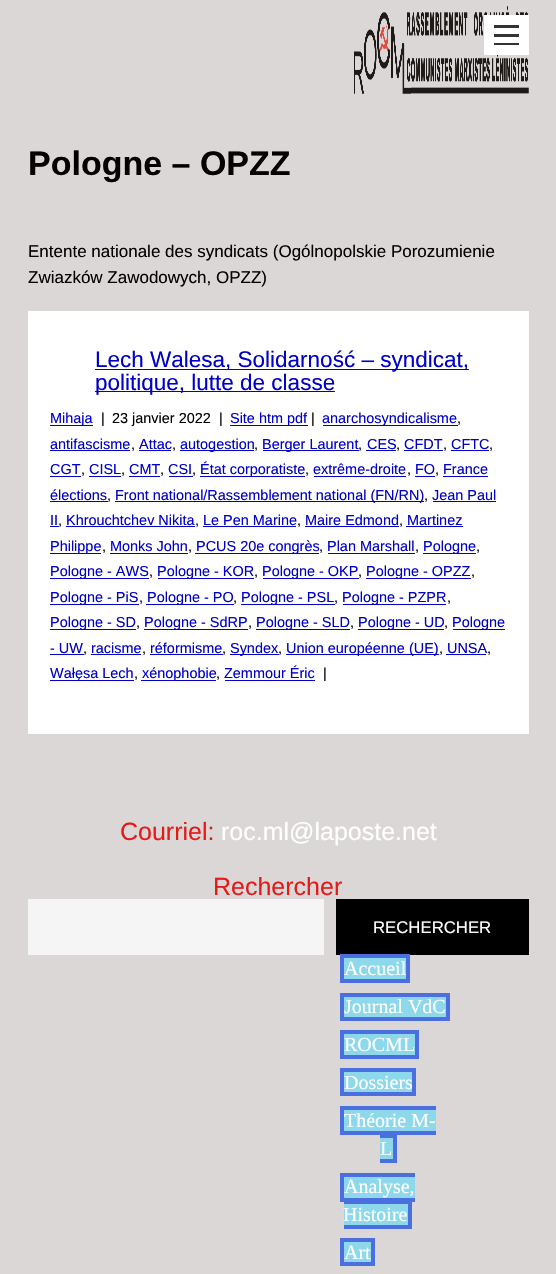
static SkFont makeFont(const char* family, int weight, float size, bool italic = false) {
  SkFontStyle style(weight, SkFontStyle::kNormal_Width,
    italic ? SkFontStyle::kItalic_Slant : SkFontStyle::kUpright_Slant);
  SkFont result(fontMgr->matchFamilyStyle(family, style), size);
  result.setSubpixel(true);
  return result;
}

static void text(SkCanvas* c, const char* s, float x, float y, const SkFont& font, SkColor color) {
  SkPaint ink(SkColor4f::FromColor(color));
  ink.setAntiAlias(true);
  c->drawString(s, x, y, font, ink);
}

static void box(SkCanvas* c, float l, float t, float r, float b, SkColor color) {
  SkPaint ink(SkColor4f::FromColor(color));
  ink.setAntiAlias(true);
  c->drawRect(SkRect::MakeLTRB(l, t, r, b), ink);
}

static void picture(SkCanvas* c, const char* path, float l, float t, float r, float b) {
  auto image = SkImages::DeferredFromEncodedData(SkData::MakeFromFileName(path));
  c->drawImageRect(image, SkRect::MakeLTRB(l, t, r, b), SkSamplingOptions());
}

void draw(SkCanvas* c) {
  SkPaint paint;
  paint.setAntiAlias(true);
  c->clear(0xffdbd7d7);
  picture(c, "img_01.png", 354, 6, 529, 94);
  box(c, 494, 28, 519, 43, 0xffffffff);
  box(c, 494, 43, 519, 45, 0xff333333);
  paint.setStyle(SkPaint::kStroke_Style);
  paint.setStrokeWidth(10);
  paint.setColor(0xffffffff);
  c->drawRect(SkRect::MakeLTRB(489, 20, 524, 50), paint);
  box(c, 494, 25, 519, 28, 0xff333333);
  box(c, 494, 34, 519, 37, 0xff333333);
  SkFont face1 = makeFont("Liberation Sans", 700, 34);
  text(c, "Pologne – OPZZ", 28, 175, face1, 0xff050000);
  SkFont face2 = makeFont("Liberation Sans", 400, 17);
  text(c, "Entente nationale des syndicats (Ogólnopolskie Porozumienie", 28, 257, face2, 0xff050000);
  text(c, "Zwiazków Zawodowych, OPZZ)", 28, 283, face2, 0xff050000);
  box(c, 28, 311, 529, 734, 0xffffffff);
  box(c, 95, 369, 469, 370, 0xff0000c8);
  SkFont face3 = makeFont("Liberation Sans", 400, 22.5f);
  text(c, "Lech Walesa, Solidarność – syndicat,", 95, 367, face3, 0xff0000c8);
  box(c, 95, 391, 335, 392, 0xff0000c8);
  text(c, "politique, lutte de classe", 95, 390, face3, 0xff0000c8);
  box(c, 50, 425, 93, 426, 0xff0000c8);
  SkFont face4 = makeFont("Liberation Sans", 400, 14.45f);
  text(c, "Mihaja", 50, 423, face4, 0xff0000c8);
  text(c, "|", 101, 423, face4, 0xff050000);
  text(c, "23 janvier 2022", 112, 423, face4, 0xff050000);
  text(c, "|", 219, 423, face4, 0xff050000);
  box(c, 230, 425, 308, 426, 0xff0000c8);
  text(c, "Site htm pdf", 230, 423, face4, 0xff0000c8);
  text(c, "|", 311, 423, face4, 0xff050000);
  box(c, 323, 425, 458, 426, 0xff0000c8);
  text(c, "anarchosyndicalisme", 322, 423, face4, 0xff0000c8);
  text(c, ",", 457, 423, face4, 0xff050000);
  text(c, "antifascisme", 50, 449, face4, 0xff0000c8);
  text(c, ",", 131, 449, face4, 0xff050000);
  box(c, 50, 450, 130, 451, 0xff0000c8);
  text(c, "Attac", 139, 449, face4, 0xff0000c8);
  text(c, ",", 172, 449, face4, 0xff050000);
  box(c, 139, 450, 171, 451, 0xff0000c8);
  box(c, 180, 450, 254, 451, 0xff0000c8);
  text(c, "autogestion", 180, 449, face4, 0xff0000c8);
  text(c, ",", 254, 449, face4, 0xff050000);
  box(c, 263, 450, 359, 451, 0xff0000c8);
  text(c, "Berger Laurent", 262, 449, face4, 0xff0000c8);
  text(c, ",", 358, 449, face4, 0xff050000);
  text(c, "CES", 367, 449, face4, 0xff0000c8);
  text(c, ",", 396, 449, face4, 0xff050000);
  box(c, 366, 450, 396, 451, 0xff0000c8);
  text(c, "CFDT", 404, 449, face4, 0xff0000c8);
  text(c, ",", 443, 449, face4, 0xff050000);
  box(c, 404, 450, 443, 451, 0xff0000c8);
  text(c, "CFTC", 451, 449, face4, 0xff0000c8);
  text(c, ",", 489, 449, face4, 0xff050000);
  box(c, 451, 450, 489, 451, 0xff0000c8);
  text(c, "CGT", 50, 474, face4, 0xff0000c8);
  text(c, ",", 81, 474, face4, 0xff050000);
  box(c, 50, 476, 81, 477, 0xff0000c8);
  text(c, "CISL", 89, 474, face4, 0xff0000c8);
  text(c, ",", 121, 474, face4, 0xff050000);
  box(c, 89, 476, 121, 477, 0xff0000c8);
  text(c, "CMT", 129, 474, face4, 0xff0000c8);
  text(c, ",", 160, 474, face4, 0xff050000);
  box(c, 129, 476, 160, 477, 0xff0000c8);
  text(c, "CSI", 168, 474, face4, 0xff0000c8);
  text(c, ",", 192, 474, face4, 0xff050000);
  box(c, 169, 476, 193, 477, 0xff0000c8);
  box(c, 200, 476, 305, 477, 0xff0000c8);
  text(c, "État corporatiste", 200, 474, face4, 0xff0000c8);
  text(c, ",", 305, 474, face4, 0xff050000);
  text(c, "extrême-droite", 313, 474, face4, 0xff0000c8);
  text(c, ",", 407, 474, face4, 0xff050000);
  box(c, 314, 476, 406, 477, 0xff0000c8);
  text(c, "FO", 415, 474, face4, 0xff0000c8);
  text(c, ",", 435, 474, face4, 0xff050000);
  box(c, 415, 476, 435, 477, 0xff0000c8);
  box(c, 443, 476, 488, 477, 0xff0000c8);
  text(c, "France", 443, 474, face4, 0xff0000c8);
  text(c, "élections", 50, 500, face4, 0xff0000c8);
  text(c, ",", 107, 500, face4, 0xff050000);
  box(c, 50, 501, 108, 502, 0xff0000c8);
  box(c, 115, 501, 424, 502, 0xff0000c8);
  text(c, "Front national/Rassemblement national (FN/RN)", 115, 500, face4, 0xff0000c8);
  text(c, ",", 424, 500, face4, 0xff050000);
  box(c, 433, 501, 496, 502, 0xff0000c8);
  text(c, "Jean Paul", 432, 500, face4, 0xff0000c8);
  text(c, "II", 50, 525, face4, 0xff0000c8);
  text(c, ",", 58, 525, face4, 0xff050000);
  box(c, 50, 526, 59, 527, 0xff0000c8);
  text(c, "Khrouchtchev Nikita", 66, 525, face4, 0xff0000c8);
  text(c, ",", 195, 525, face4, 0xff050000);
  box(c, 66, 526, 195, 527, 0xff0000c8);
  text(c, "Le Pen Marine", 203, 525, face4, 0xff0000c8);
  text(c, ",", 297, 525, face4, 0xff050000);
  box(c, 203, 526, 296, 527, 0xff0000c8);
  text(c, "Maire Edmond", 305, 525, face4, 0xff0000c8);
  text(c, ",", 399, 525, face4, 0xff050000);
  box(c, 305, 526, 399, 527, 0xff0000c8);
  box(c, 406, 526, 463, 527, 0xff0000c8);
  text(c, "Martinez", 407, 525, face4, 0xff0000c8);
  box(c, 50, 553, 101, 554, 0xff0000c8);
  text(c, "Philippe", 50, 551, face4, 0xff0000c8);
  text(c, ",", 102, 551, face4, 0xff050000);
  text(c, "Monks John", 110, 551, face4, 0xff0000c8);
  text(c, ",", 188, 551, face4, 0xff050000);
  box(c, 110, 553, 188, 554, 0xff0000c8);
  box(c, 195, 553, 319, 554, 0xff0000c8);
  text(c, "PCUS 20e congrès", 196, 551, face4, 0xff0000c8);
  text(c, ",", 319, 551, face4, 0xff050000);
  text(c, "Plan Marshall", 327, 551, face4, 0xff0000c8);
  text(c, ",", 415, 551, face4, 0xff050000);
  box(c, 328, 553, 415, 554, 0xff0000c8);
  box(c, 423, 553, 476, 554, 0xff0000c8);
  text(c, "Pologne", 423, 551, face4, 0xff0000c8);
  text(c, ",", 476, 551, face4, 0xff050000);
  box(c, 50, 578, 149, 579, 0xff0000c8);
  text(c, "Pologne - AWS", 50, 576, face4, 0xff0000c8);
  text(c, ",", 149, 576, face4, 0xff050000);
  box(c, 158, 578, 254, 579, 0xff0000c8);
  text(c, "Pologne - KOR", 157, 576, face4, 0xff0000c8);
  text(c, ",", 254, 576, face4, 0xff050000);
  box(c, 263, 578, 359, 579, 0xff0000c8);
  text(c, "Pologne - OKP", 262, 576, face4, 0xff0000c8);
  text(c, ",", 358, 576, face4, 0xff050000);
  box(c, 366, 578, 471, 579, 0xff0000c8);
  text(c, "Pologne - OPZZ", 366, 576, face4, 0xff0000c8);
  text(c, ",", 471, 576, face4, 0xff050000);
  box(c, 50, 604, 139, 605, 0xff0000c8);
  text(c, "Pologne - PiS", 50, 602, face4, 0xff0000c8);
  text(c, ",", 139, 602, face4, 0xff050000);
  box(c, 146, 604, 234, 605, 0xff0000c8);
  text(c, "Pologne - PO", 147, 602, face4, 0xff0000c8);
  text(c, ",", 233, 602, face4, 0xff050000);
  box(c, 241, 604, 335, 605, 0xff0000c8);
  text(c, "Pologne - PSL", 241, 602, face4, 0xff0000c8);
  text(c, ",", 334, 602, face4, 0xff050000);
  box(c, 343, 604, 446, 605, 0xff0000c8);
  text(c, "Pologne - PZPR", 342, 602, face4, 0xff0000c8);
  text(c, ",", 447, 602, face4, 0xff050000);
  box(c, 50, 629, 136, 630, 0xff0000c8);
  text(c, "Pologne - SD", 50, 627, face4, 0xff0000c8);
  text(c, ",", 136, 627, face4, 0xff050000);
  box(c, 144, 629, 248, 630, 0xff0000c8);
  text(c, "Pologne - SdRP", 144, 627, face4, 0xff0000c8);
  text(c, ",", 248, 627, face4, 0xff050000);
  box(c, 256, 629, 350, 630, 0xff0000c8);
  text(c, "Pologne - SLD", 256, 627, face4, 0xff0000c8);
  text(c, ",", 350, 627, face4, 0xff050000);
  box(c, 358, 629, 444, 630, 0xff0000c8);
  text(c, "Pologne - UD", 358, 627, face4, 0xff0000c8);
  text(c, ",", 444, 627, face4, 0xff050000);
  box(c, 453, 629, 505, 630, 0xff0000c8);
  text(c, "Pologne", 452, 627, face4, 0xff0000c8);
  text(c, "- UW", 50, 653, face4, 0xff0000c8);
  text(c, ",", 83, 653, face4, 0xff050000);
  box(c, 50, 654, 84, 655, 0xff0000c8);
  text(c, "racisme", 91, 653, face4, 0xff0000c8);
  text(c, ",", 142, 653, face4, 0xff050000);
  box(c, 91, 654, 141, 655, 0xff0000c8);
  text(c, "réformisme", 150, 653, face4, 0xff0000c8);
  text(c, ",", 222, 653, face4, 0xff050000);
  box(c, 150, 654, 223, 655, 0xff0000c8);
  box(c, 230, 654, 279, 655, 0xff0000c8);
  text(c, "Syndex", 230, 653, face4, 0xff0000c8);
  text(c, ",", 278, 653, face4, 0xff050000);
  box(c, 286, 654, 439, 655, 0xff0000c8);
  text(c, "Union européenne (UE)", 286, 653, face4, 0xff0000c8);
  text(c, ",", 439, 653, face4, 0xff050000);
  text(c, "UNSA", 447, 653, face4, 0xff0000c8);
  text(c, ",", 487, 653, face4, 0xff050000);
  box(c, 446, 654, 486, 655, 0xff0000c8);
  box(c, 50, 680, 134, 681, 0xff0000c8);
  text(c, "Wałęsa Lech", 50, 678, face4, 0xff0000c8);
  text(c, ",", 134, 678, face4, 0xff050000);
  box(c, 141, 680, 216, 681, 0xff0000c8);
  text(c, "xénophobie", 142, 678, face4, 0xff0000c8);
  text(c, ",", 216, 678, face4, 0xff050000);
  box(c, 225, 680, 315, 681, 0xff0000c8);
  text(c, "Zemmour Éric", 224, 678, face4, 0xff0000c8);
  text(c, "|", 323, 678, face4, 0xff050000);
  SkFont face5 = makeFont("Liberation Sans", 400, 25);
  text(c, "Courriel:", 120, 840, face5, 0xffe61919);
  text(c, "roc.ml@laposte.net", 221, 840, face5, 0xffffffff);
  text(c, "Rechercher", 213, 895, face5, 0xffe61919);
  box(c, 28, 899, 324, 955, 0xfff5f5f5);
  box(c, 336, 899, 529, 955, 0xff000000);
  SkFont face6 = makeFont("Liberation Sans", 400, 16.75f);
  text(c, "RECHERCHER", 373, 933, face6, 0xffffffff);
  paint.setStyle(SkPaint::kFill_Style);
  paint.setColor(0xff8dd8eb);
  c->drawRect(SkRect::MakeLTRB(342, 956, 408, 981), paint);
  paint.setStyle(SkPaint::kStroke_Style);
  paint.setStrokeWidth(4);
  paint.setColor(0xff4c6fe0);
  c->drawRect(SkRect::MakeLTRB(342, 956, 408, 981), paint);
  SkFont face7 = makeFont("Liberation Serif", 400, 20);
  text(c, "Accueil", 344, 975, face7, 0xffffffff);
  paint.setStyle(SkPaint::kFill_Style);
  paint.setColor(0xff8dd8eb);
  c->drawRect(SkRect::MakeLTRB(342, 995, 448, 1019), paint);
  paint.setStyle(SkPaint::kStroke_Style);
  paint.setColor(0xff4c6fe0);
  c->drawRect(SkRect::MakeLTRB(342, 995, 448, 1019), paint);
  text(c, "Journal VdC", 344, 1013, face7, 0xffffffff);
  paint.setStyle(SkPaint::kFill_Style);
  paint.setColor(0xff8dd8eb);
  c->drawRect(SkRect::MakeLTRB(342, 1032, 417, 1057), paint);
  paint.setStyle(SkPaint::kStroke_Style);
  paint.setColor(0xff4c6fe0);
  c->drawRect(SkRect::MakeLTRB(342, 1032, 417, 1057), paint);
  text(c, "ROCML", 344, 1051, face7, 0xffffffff);
  paint.setStyle(SkPaint::kFill_Style);
  paint.setColor(0xff8dd8eb);
  c->drawRect(SkRect::MakeLTRB(342, 1070, 414, 1094), paint);
  paint.setStyle(SkPaint::kStroke_Style);
  paint.setColor(0xff4c6fe0);
  c->drawRect(SkRect::MakeLTRB(342, 1070, 414, 1094), paint);
  text(c, "Dossiers", 344, 1089, face7, 0xffffffff);
  box(c, 344, 1110, 436, 1131, 0xff8dd8eb);
  text(c, "Théorie M-", 344, 1127, face7, 0xffffffff);
  box(c, 340, 1106, 436, 1110, 0xff4c6fe0);
  box(c, 340, 1131, 436, 1135, 0xff4c6fe0);
  box(c, 340, 1106, 344, 1135, 0xff4c6fe0);
  box(c, 380, 1138, 393, 1159, 0xff8dd8eb);
  text(c, "L", 380, 1155, face7, 0xffffffff);
  box(c, 380, 1135, 396, 1138, 0xff4c6fe0);
  box(c, 393, 1134, 397, 1163, 0xff4c6fe0);
  box(c, 380, 1159, 396, 1163, 0xff4c6fe0);
  box(c, 344, 1177, 415, 1198, 0xff8dd8eb);
  text(c, "Analyse,", 344, 1193, face7, 0xffffffff);
  box(c, 340, 1173, 415, 1177, 0xff4c6fe0);
  box(c, 340, 1198, 415, 1202, 0xff4c6fe0);
  box(c, 340, 1173, 344, 1201, 0xff4c6fe0);
  box(c, 344, 1204, 408, 1225, 0xff8dd8eb);
  text(c, "Histoire", 343, 1221, face7, 0xffffffff);
  box(c, 344, 1202, 411, 1204, 0xff4c6fe0);
  box(c, 408, 1200, 412, 1229, 0xff4c6fe0);
  box(c, 344, 1225, 411, 1229, 0xff4c6fe0);
  paint.setStyle(SkPaint::kFill_Style);
  paint.setColor(0xff8dd8eb);
  c->drawRect(SkRect::MakeLTRB(342, 1240, 373, 1264), paint);
  paint.setStyle(SkPaint::kStroke_Style);
  paint.setColor(0xff4c6fe0);
  c->drawRect(SkRect::MakeLTRB(342, 1240, 373, 1264), paint);
  text(c, "Art", 344, 1259, face7, 0xffffffff);
}
